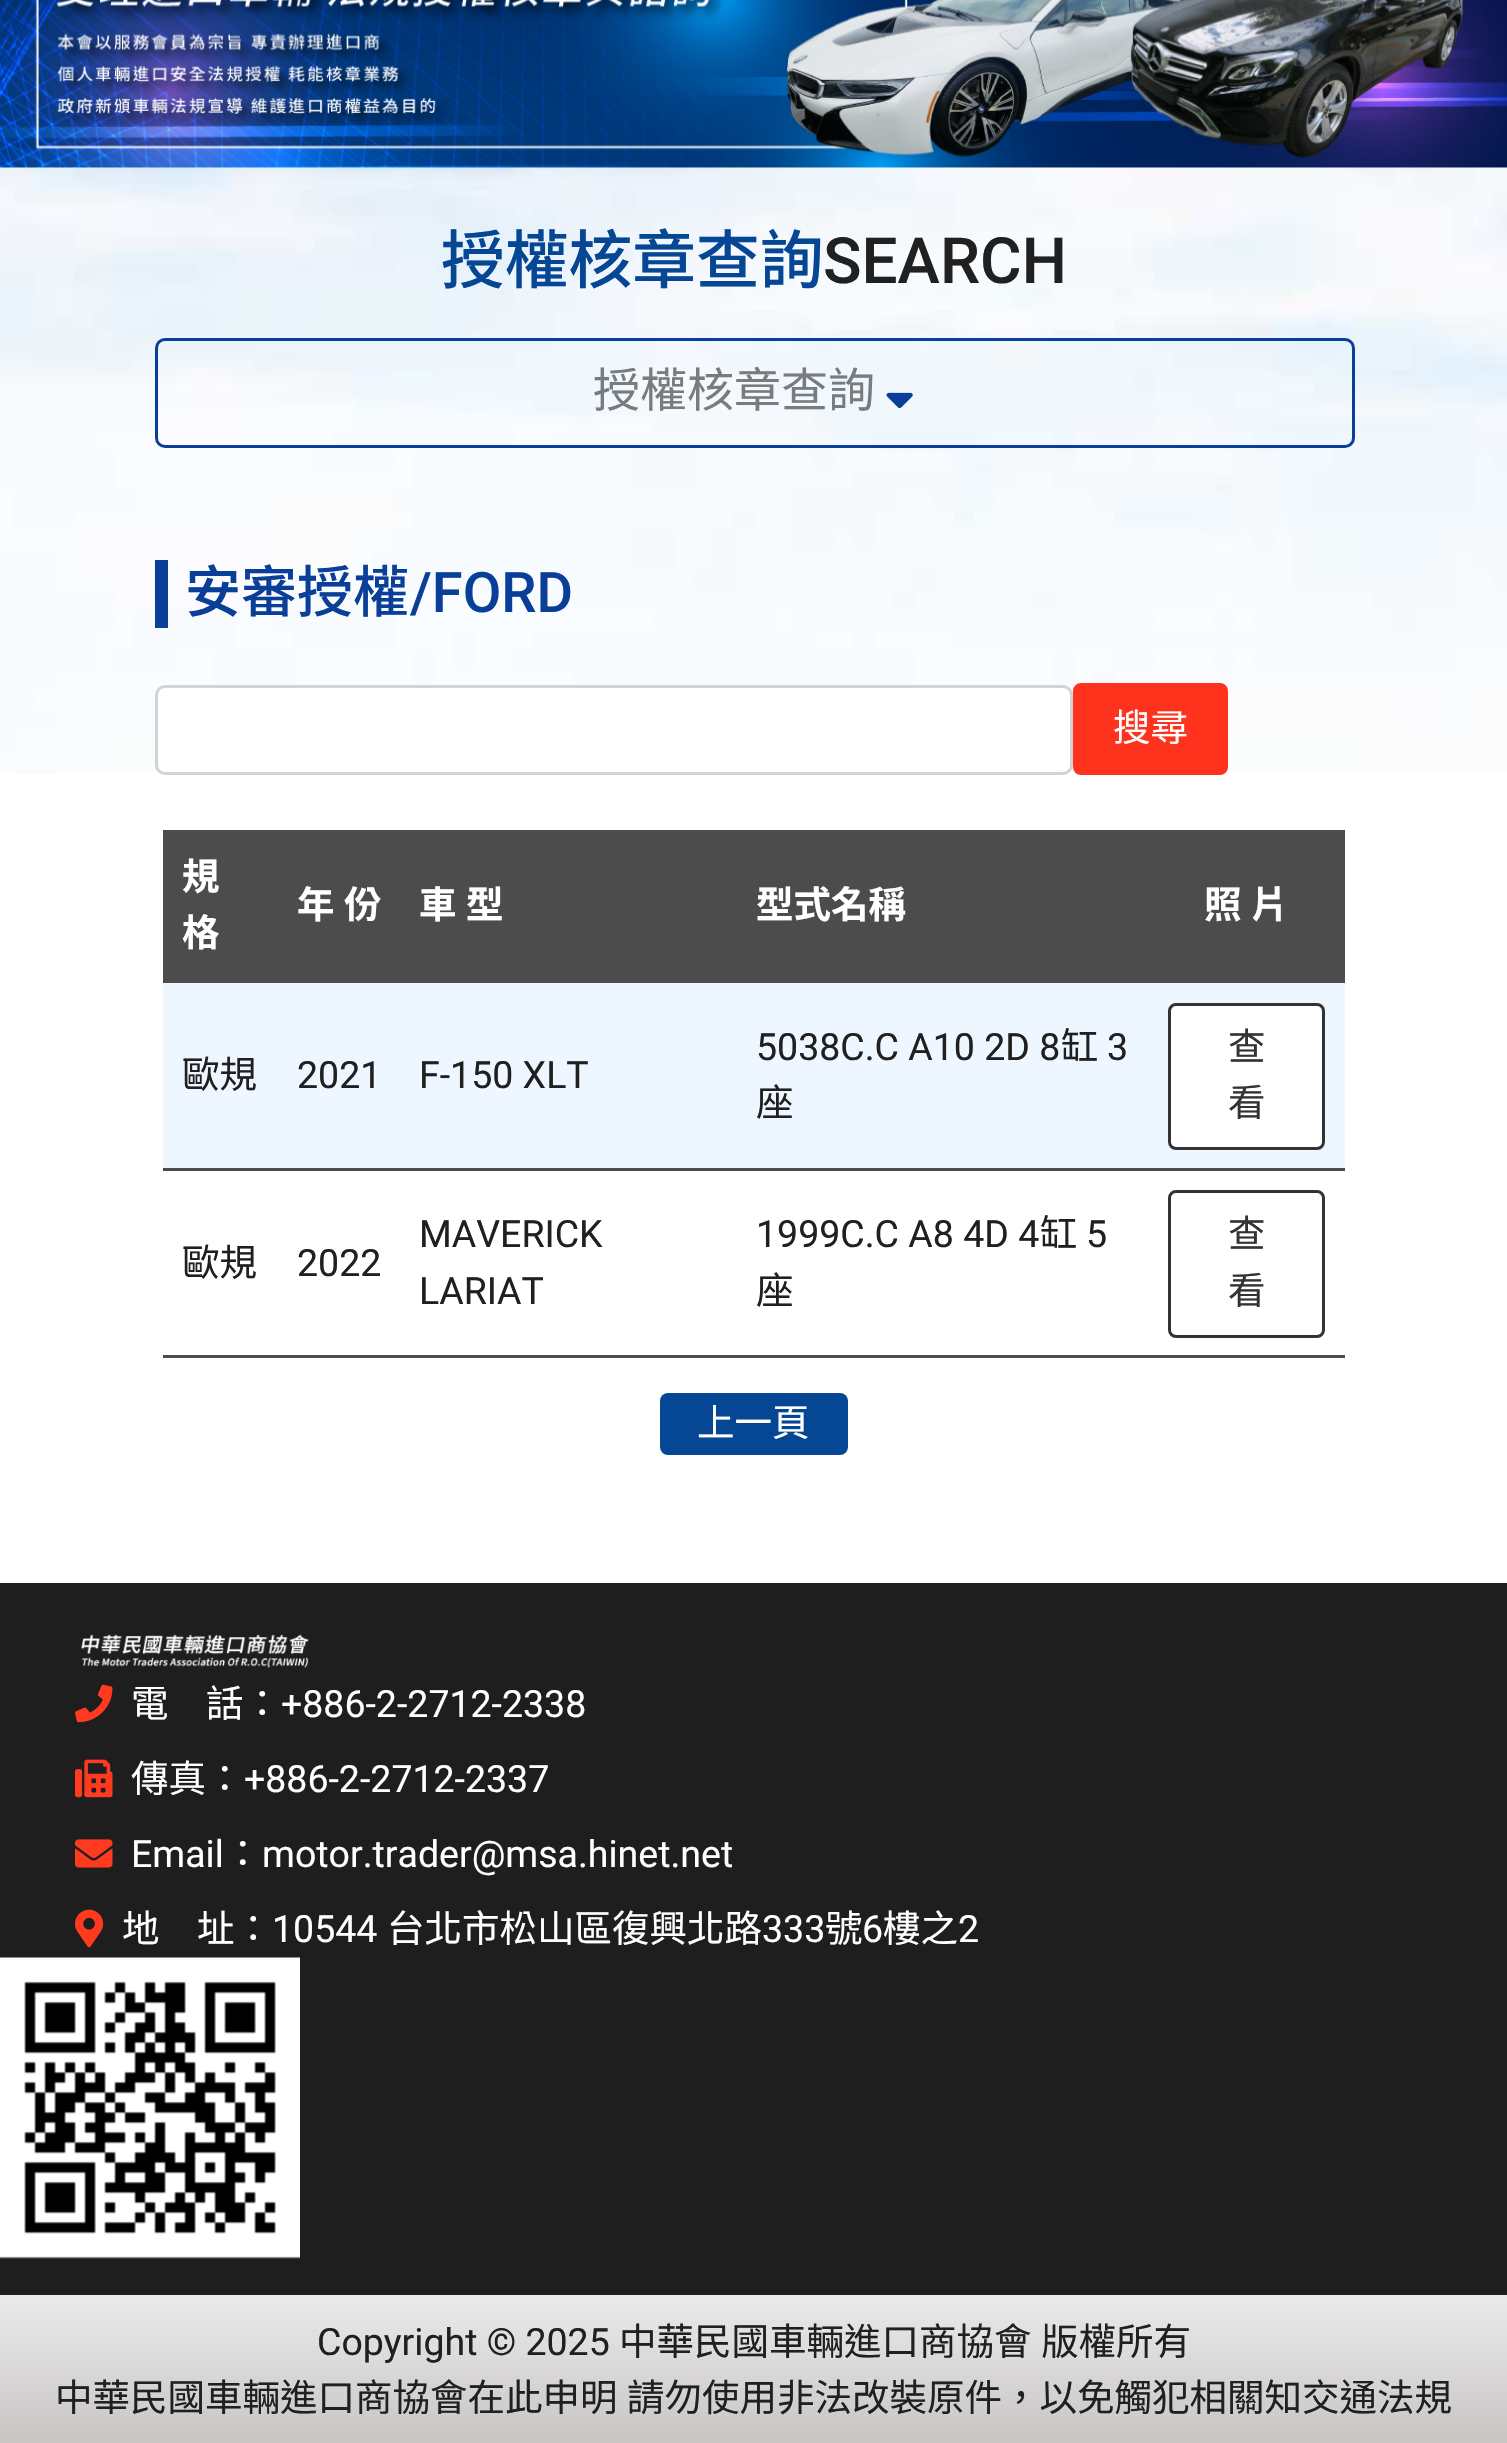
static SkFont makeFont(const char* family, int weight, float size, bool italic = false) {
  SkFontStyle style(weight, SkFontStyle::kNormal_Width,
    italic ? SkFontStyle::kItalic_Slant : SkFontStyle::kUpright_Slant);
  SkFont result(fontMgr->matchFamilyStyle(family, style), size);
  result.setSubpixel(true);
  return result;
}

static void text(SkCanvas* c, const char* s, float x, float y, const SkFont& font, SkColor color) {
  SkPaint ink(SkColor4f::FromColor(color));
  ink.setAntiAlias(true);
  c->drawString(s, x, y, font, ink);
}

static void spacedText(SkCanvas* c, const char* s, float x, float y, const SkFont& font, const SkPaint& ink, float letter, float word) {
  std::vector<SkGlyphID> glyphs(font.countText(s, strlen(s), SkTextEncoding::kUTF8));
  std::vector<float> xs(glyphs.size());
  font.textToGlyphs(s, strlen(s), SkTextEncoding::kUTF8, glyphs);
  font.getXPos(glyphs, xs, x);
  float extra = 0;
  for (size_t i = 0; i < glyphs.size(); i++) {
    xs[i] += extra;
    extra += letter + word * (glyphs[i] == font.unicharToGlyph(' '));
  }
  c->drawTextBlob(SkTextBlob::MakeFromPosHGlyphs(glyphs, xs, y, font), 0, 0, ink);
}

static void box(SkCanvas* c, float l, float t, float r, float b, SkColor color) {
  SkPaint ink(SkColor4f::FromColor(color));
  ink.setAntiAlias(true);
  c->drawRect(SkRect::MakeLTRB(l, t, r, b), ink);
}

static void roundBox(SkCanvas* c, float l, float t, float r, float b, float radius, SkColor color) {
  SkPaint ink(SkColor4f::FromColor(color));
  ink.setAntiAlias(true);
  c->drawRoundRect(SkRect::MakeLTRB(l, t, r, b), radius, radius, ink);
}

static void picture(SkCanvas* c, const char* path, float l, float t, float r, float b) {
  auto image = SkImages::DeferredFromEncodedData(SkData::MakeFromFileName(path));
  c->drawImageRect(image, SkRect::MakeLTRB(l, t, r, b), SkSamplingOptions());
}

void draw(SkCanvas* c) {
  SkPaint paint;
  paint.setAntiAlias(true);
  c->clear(0xffffffff);
  picture(c, "img_01.png", 0, 167, 1507, 773);
  picture(c, "img_02.png", 0, 0, 1507, 168);
  SkFont face1 = makeFont("Noto Sans TC", 500, 63.75f);
  text(c, "授權核章查詢", 441, 283, face1, 0xff064795);
  SkFont face2 = makeFont("Roboto", 500, 63.75f);
  text(c, "SEARCH", 823, 283, face2, 0xff202020);
  paint.setStyle(SkPaint::kStroke_Style);
  paint.setStrokeWidth(3);
  paint.setColor(0xff0a3f99);
  c->drawRoundRect(SkRect::MakeLTRB(156.5f, 339.5f, 1353.5f, 446.5f), 8.5f, 8.5f, paint);
  SkFont face3 = makeFont("Noto Sans TC", 400, 47);
  text(c, "授權核章查詢", 593, 407, face3, 0xff797c7f);
  picture(c, "img_03.png", 886, 392, 913, 409);
  box(c, 155, 560, 168, 628, 0xff0a3f99);
  SkFont face4 = makeFont("Noto Sans TC", 500, 56);
  text(c, "安審授權", 185, 612, face4, 0xff0a3f99);
  SkFont face5 = makeFont("Roboto", 500, 56);
  text(c, "/FORD", 410, 612, face5, 0xff0a3f99);
  paint.setStyle(SkPaint::kFill_Style);
  paint.setColor(0xffffffff);
  c->drawRoundRect(SkRect::MakeLTRB(156.5f, 686.5f, 1071.5f, 773.5f), 8.5f, 8.5f, paint);
  paint.setStyle(SkPaint::kStroke_Style);
  paint.setColor(0xffced4da);
  c->drawRoundRect(SkRect::MakeLTRB(156.5f, 686.5f, 1071.5f, 773.5f), 8.5f, 8.5f, paint);
  paint.setStyle(SkPaint::kFill_Style);
  paint.setColor(0xffff321d);
  c->drawRoundRect(SkRect::MakeLTRB(1074.5f, 684.5f, 1226.5f, 773.5f), 6.5f, 6.5f, paint);
  paint.setStyle(SkPaint::kStroke_Style);
  c->drawRoundRect(SkRect::MakeLTRB(1074.5f, 684.5f, 1226.5f, 773.5f), 6.5f, 6.5f, paint);
  SkFont face6 = makeFont("Noto Sans TC", 400, 37.5f);
  text(c, "搜尋", 1113, 741, face6, 0xffffffff);
  box(c, 163, 830, 1345, 983, 0xff4c4c4c);
  SkFont face7 = makeFont("Noto Sans TC", 700, 37.5f);
  text(c, "規", 182, 890, face7, 0xffffffff);
  text(c, "格", 182, 946, face7, 0xffffffff);
  paint.setStyle(SkPaint::kFill_Style);
  paint.setColor(0xffffffff);
  spacedText(c, "年 份", 297, 918, face7, paint, 0, 1);
  spacedText(c, "車 型", 419, 918, face7, paint, 0, 1);
  text(c, "型式名稱", 756, 918, face7, 0xffffffff);
  spacedText(c, "照 片", 1204, 918, face7, paint, 0, 1);
  box(c, 163, 983, 1345, 1168, 0xffeef7ff);
  box(c, 163, 1168, 1345, 1171, 0xff4c4c4c);
  text(c, "歐規", 182, 1088, face6, 0xff202020);
  SkFont face8 = makeFont("Roboto", 400, 37.5f);
  text(c, "2021", 297, 1088, face8, 0xff202020);
  text(c, "F-150 XLT", 419, 1088, face8, 0xff202020);
  text(c, "5038C.C A10 2D 8", 756, 1060, face8, 0xff202020);
  text(c, "缸", 1061, 1060, face6, 0xff202020);
  text(c, "3", 1107, 1060, face8, 0xff202020);
  text(c, "座", 756, 1116, face6, 0xff202020);
  c->drawRoundRect(SkRect::MakeLTRB(1169.5f, 1004.5f, 1323.5f, 1148.5f), 6.5f, 6.5f, paint);
  paint.setStyle(SkPaint::kStroke_Style);
  paint.setColor(0xff333333);
  c->drawRoundRect(SkRect::MakeLTRB(1169.5f, 1004.5f, 1323.5f, 1148.5f), 6.5f, 6.5f, paint);
  text(c, "查", 1228, 1060, face6, 0xff333333);
  text(c, "看", 1228, 1116, face6, 0xff333333);
  box(c, 163, 1355, 1345, 1358, 0xff4c4c4c);
  text(c, "歐規", 182, 1276, face6, 0xff202020);
  text(c, "2022", 297, 1276, face8, 0xff202020);
  text(c, "MAVERICK", 419, 1247, face8, 0xff202020);
  text(c, "LARIAT", 419, 1304, face8, 0xff202020);
  text(c, "1999C.C A8 4D 4", 756, 1247, face8, 0xff202020);
  text(c, "缸", 1040, 1247, face6, 0xff202020);
  text(c, "5", 1086, 1247, face8, 0xff202020);
  text(c, "座", 756, 1304, face6, 0xff202020);
  c->drawRoundRect(SkRect::MakeLTRB(1169.5f, 1191.5f, 1323.5f, 1336.5f), 6.5f, 6.5f, paint);
  text(c, "查", 1228, 1247, face6, 0xff333333);
  text(c, "看", 1228, 1304, face6, 0xff333333);
  roundBox(c, 660, 1393, 848, 1455, 8, 0xff064795);
  text(c, "上一頁", 697, 1436, face6, 0xffffffff);
  box(c, 0, 1583, 1507, 2295, 0xff1e1e1e);
  picture(c, "img_04.png", 81, 1634, 309, 1668);
  picture(c, "img_05.png", 75, 1684, 113, 1723);
  text(c, "電　話：", 131, 1717, face6, 0xffffffff);
  text(c, "+886-2-2712-2338", 281, 1717, face8, 0xffffffff);
  picture(c, "img_06.png", 75, 1759, 113, 1798);
  text(c, "傳真：", 131, 1792, face6, 0xffffffff);
  text(c, "+886-2-2712-2337", 244, 1792, face8, 0xffffffff);
  picture(c, "img_07.png", 75, 1839, 113, 1868);
  text(c, "Email", 131, 1867, face8, 0xffffffff);
  text(c, "：", 224, 1867, face6, 0xffffffff);
  text(c, "motor.trader@msa.hinet.net", 262, 1867, face8, 0xffffffff);
  picture(c, "img_08.png", 75, 1909, 104, 1948);
  text(c, "地　址：", 122, 1942, face6, 0xffffffff);
  text(c, "10544", 272, 1942, face8, 0xffffffff);
  text(c, "台北市松山區復興北路", 387, 1942, face6, 0xffffffff);
  text(c, "333", 762, 1942, face8, 0xffffffff);
  text(c, "號", 825, 1942, face6, 0xffffffff);
  text(c, "6", 862, 1942, face8, 0xffffffff);
  text(c, "樓之", 883, 1942, face6, 0xffffffff);
  text(c, "2", 958, 1942, face8, 0xffffffff);
  picture(c, "img_09.png", 0, 1957, 300, 2259);
  paint.setStyle(SkPaint::kFill_Style);
  {
    const SkColor colors[] = {0xffeaeaea, 0xffc8c5c4};
    const float stops[] = {0, 1};
    const SkPoint ends[] = {{754, 2295}, {754, 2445}};
    paint.setShader(SkGradientShader::MakeLinear(ends, colors, stops, 2, SkTileMode::kClamp));
    paint.setAlpha(255);
  }
  c->drawRect(SkRect::MakeLTRB(0, 2295, 1507, 2443), paint);
  text(c, "Copyright © 2025", 317, 2355, face8, 0xff202020);
  text(c, "中華民國車輛進口商協會", 619, 2355, face6, 0xff202020);
  text(c, "版權所有", 1041, 2355, face6, 0xff202020);
  paint.setShader(nullptr);
  paint.setColor(0xff202020);
  spacedText(c, "中華民國車輛進口商協會在此申明 請勿使用非法改裝原件，以免觸犯相關知交通法規", 55, 2411, face6, paint, 0, 1);
}
